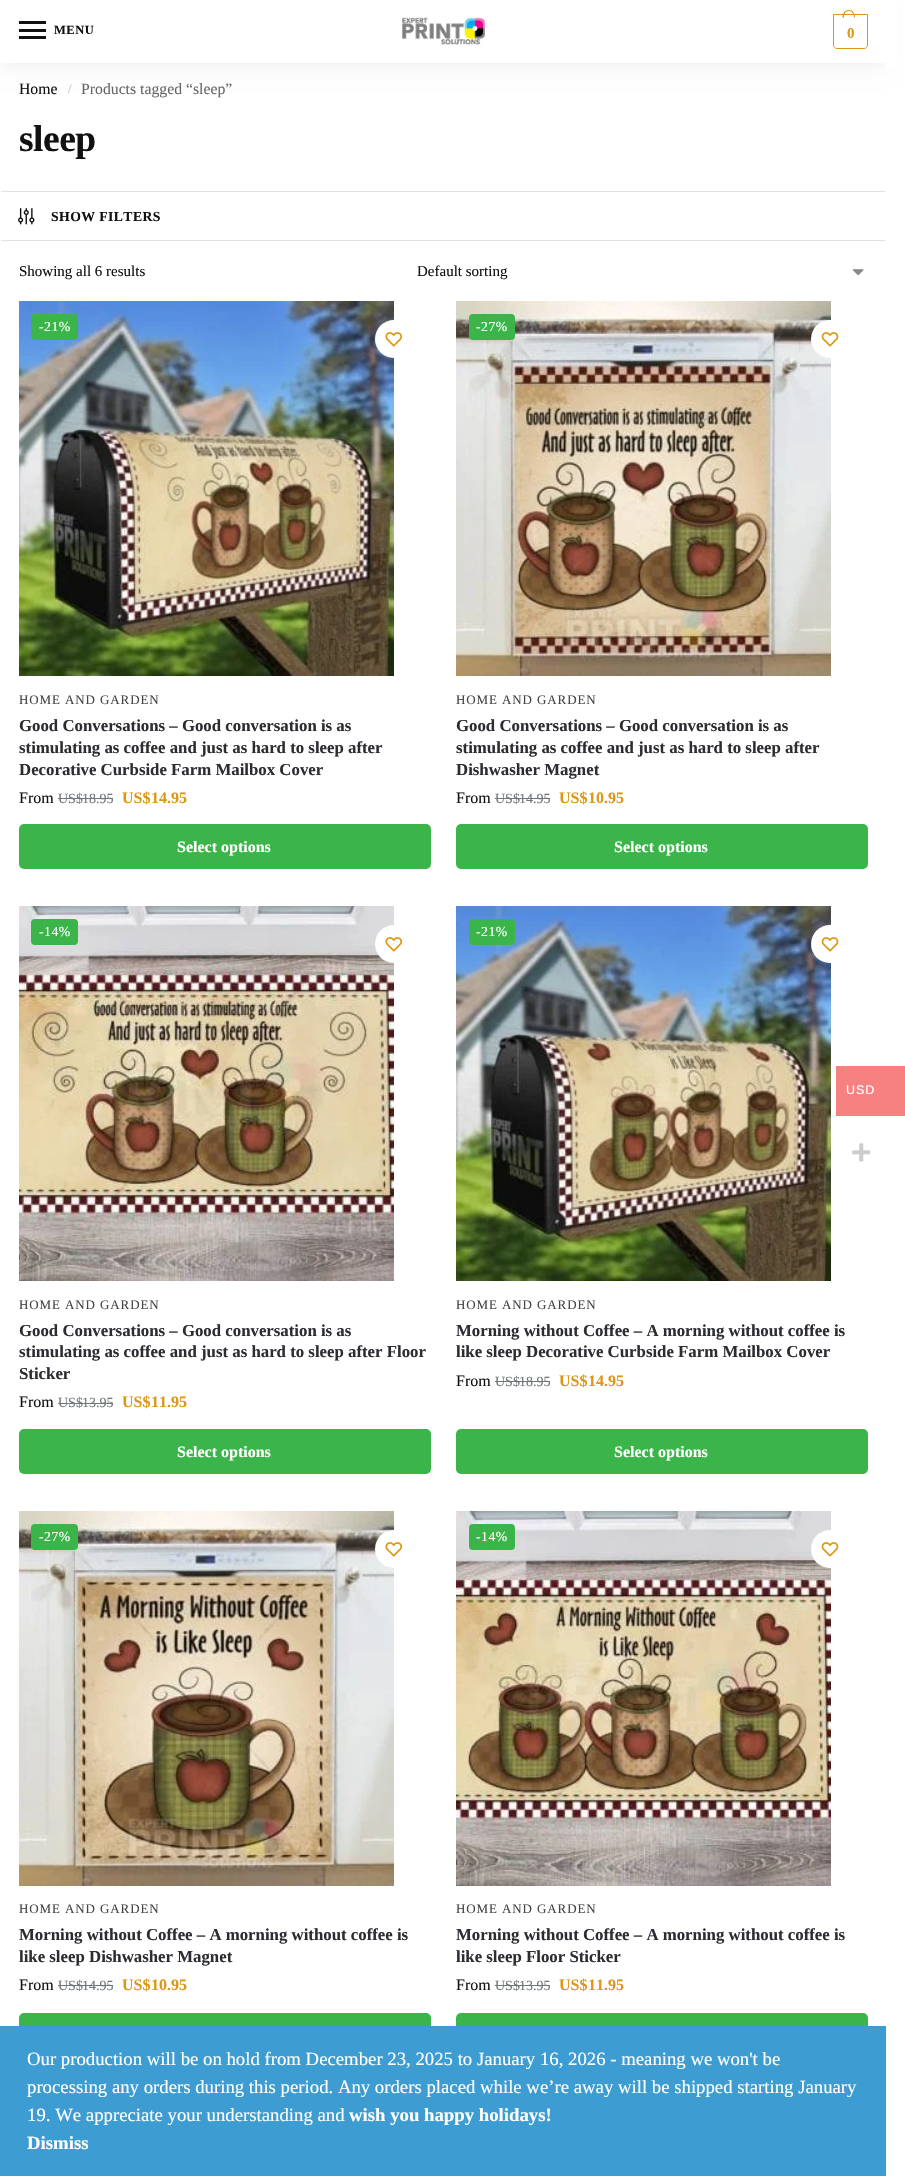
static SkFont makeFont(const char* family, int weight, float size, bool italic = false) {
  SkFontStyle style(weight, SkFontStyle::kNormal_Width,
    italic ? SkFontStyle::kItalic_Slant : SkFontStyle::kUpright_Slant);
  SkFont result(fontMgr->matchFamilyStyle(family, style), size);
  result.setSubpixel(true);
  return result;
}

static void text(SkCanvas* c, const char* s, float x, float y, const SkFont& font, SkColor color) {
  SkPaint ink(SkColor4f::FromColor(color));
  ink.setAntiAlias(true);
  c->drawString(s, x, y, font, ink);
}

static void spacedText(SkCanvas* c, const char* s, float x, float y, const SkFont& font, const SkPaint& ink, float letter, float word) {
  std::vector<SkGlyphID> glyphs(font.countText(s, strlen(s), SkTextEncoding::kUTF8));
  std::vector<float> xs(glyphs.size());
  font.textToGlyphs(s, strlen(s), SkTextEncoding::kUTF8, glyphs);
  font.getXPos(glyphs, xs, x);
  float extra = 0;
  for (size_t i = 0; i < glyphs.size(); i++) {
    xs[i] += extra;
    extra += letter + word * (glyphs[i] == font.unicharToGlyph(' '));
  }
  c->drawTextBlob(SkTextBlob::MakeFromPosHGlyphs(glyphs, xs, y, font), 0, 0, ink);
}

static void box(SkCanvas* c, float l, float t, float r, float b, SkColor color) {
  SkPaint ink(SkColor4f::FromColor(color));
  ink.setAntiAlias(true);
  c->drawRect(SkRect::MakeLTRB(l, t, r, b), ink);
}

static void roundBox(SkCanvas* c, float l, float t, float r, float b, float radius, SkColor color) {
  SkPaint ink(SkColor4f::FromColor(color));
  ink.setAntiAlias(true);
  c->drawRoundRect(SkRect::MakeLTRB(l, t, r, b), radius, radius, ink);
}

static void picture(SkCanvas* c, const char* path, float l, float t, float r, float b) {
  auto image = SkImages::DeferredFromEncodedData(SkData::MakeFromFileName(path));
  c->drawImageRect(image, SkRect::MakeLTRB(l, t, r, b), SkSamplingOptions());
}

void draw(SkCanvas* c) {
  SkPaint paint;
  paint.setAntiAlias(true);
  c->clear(0xffffffff);
  paint.setColor(0x14000000);
  paint.setMaskFilter(SkMaskFilter::MakeBlur(kNormal_SkBlurStyle, 9.5f));
  c->drawRect(SkRect::MakeLTRB(0, 1, 886, 64), paint);
  paint.setMaskFilter(nullptr);
  box(c, 0, 0, 886, 63, 0xffffffff);
  box(c, 19, 21, 46, 24, 0xff111111);
  box(c, 19, 29, 46, 32, 0xff111111);
  SkFont face1 = makeFont("Liberation Serif", 700, 12.5f);
  paint.setColor(0xff111111);
  spacedText(c, "MENU", 54, 34, face1, paint, 0.5f, 0);
  box(c, 19, 36, 46, 39, 0xff111111);
  picture(c, "img_01.png", 402, 17, 485, 45);
  paint.setStyle(SkPaint::kStroke_Style);
  paint.setStrokeWidth(1);
  paint.setColor(0xffdc9814);
  c->drawPath(SkPathBuilder().moveTo(833.5f, 14.5f).lineTo(867.5f, 14.5f).lineTo(867.5f, 45).cubicTo(867.5f, 47, 866, 48.5f, 864, 48.5f).lineTo(837, 48.5f).cubicTo(835, 48.5f, 833.5f, 47, 833.5f, 45).close().detach(), paint);
  paint.setStyle(SkPaint::kFill_Style);
  c->drawPath(SkPathBuilder(SkPathFillType::kEvenOdd).moveTo(849, 10).cubicTo(853, 10, 855, 13.5f, 855, 17.5f).lineTo(842.5f, 17.5f).cubicTo(842.5f, 13.5f, 844.5f, 10, 849, 10).close().moveTo(849, 11).cubicTo(852.5f, 11, 854, 14.5f, 854, 17.5f).lineTo(844, 17.5f).cubicTo(844, 14.5f, 845, 11, 849, 11).close().detach(), paint);
  SkFont face2 = makeFont("Liberation Serif", 700, 15);
  spacedText(c, "0", 847, 38, face2, paint, -1, 0);
  box(c, 886, 0, 897, 70, 0xffffffff);
  SkFont face3 = makeFont("Liberation Serif", 400, 15.75f);
  text(c, "Home", 19, 94, face3, 0xff111111);
  SkFont face4 = makeFont("Liberation Serif", 400, 13);
  text(c, "/", 68, 93, face4, 0xffc2c2c2);
  text(c, "Products tagged “sleep”", 81, 94, face3, 0xff666666);
  SkFont face5 = makeFont("Liberation Serif", 700, 37.5f);
  paint.setColor(0xff111111);
  spacedText(c, "sleep", 19, 151, face5, paint, -0.5f, 0);
  box(c, 1, 191, 885, 192, 0xffe2e2e2);
  box(c, 1, 240, 885, 241, 0xffe2e2e2);
  picture(c, "img_02.png", 18, 208, 35, 225);
  SkFont face6 = makeFont("Liberation Serif", 700, 13.75f);
  spacedText(c, "SHOW FILTERS", 51, 221, face6, paint, 0.4f, 0);
  SkFont face7 = makeFont("Liberation Serif", 400, 15);
  text(c, "Showing all 6 results", 19, 276, face7, 0xff111111);
  picture(c, "img_03.png", 852, 269, 864, 276);
  text(c, "Default sorting", 417, 276, face7, 0xff111111);
  picture(c, "img_04.png", 19, 301, 394, 676);
  paint.setColor(0xffffffff);
  c->drawCircle(394, 339, 19, paint);
  picture(c, "img_05.png", 385, 332, 403, 347);
  roundBox(c, 31, 314, 78, 340, 4, 0xff3bb54a);
  SkFont face8 = makeFont("Liberation Serif", 400, 13.75f);
  spacedText(c, "-21%", 39, 331, face8, paint, 0.5f, 0);
  paint.setColor(0xff444444);
  spacedText(c, "HOME AND GARDEN", 19, 704, face4, paint, 0.9f, 0);
  SkFont face9 = makeFont("Liberation Serif", 700, 16.8f);
  text(c, "Good Conversations – Good conversation is as", 19, 731, face9, 0xff2c2d33);
  text(c, "stimulating as coffee and just as hard to sleep after", 19, 753, face9, 0xff2c2d33);
  text(c, "Decorative Curbside Farm Mailbox Cover", 19, 775, face9, 0xff2c2d33);
  SkFont face10 = makeFont("Liberation Serif", 400, 16);
  text(c, "From", 19, 803, face10, 0xff111111);
  SkFont face11 = makeFont("Liberation Serif", 400, 14);
  text(c, "US$", 58, 803, face11, 0xff72767c);
  text(c, "18.95", 82, 803, face11, 0xff72767c);
  box(c, 83, 798, 113, 799, 0xff72767c);
  box(c, 58, 798, 83, 799, 0xff72767c);
  SkFont face12 = makeFont("Liberation Serif", 700, 16);
  text(c, "US$", 122, 803, face12, 0xffdc9814);
  text(c, "14.95", 151, 803, face12, 0xffdc9814);
  roundBox(c, 19, 824, 431, 869, 5, 0xff3bb54a);
  text(c, "Select options", 177, 852, face12, 0xffffffff);
  picture(c, "img_06.png", 456, 301, 831, 676);
  paint.setColor(0xffffffff);
  c->drawCircle(830, 339, 19, paint);
  picture(c, "img_07.png", 821, 332, 839, 347);
  roundBox(c, 469, 314, 515, 340, 4, 0xff3bb54a);
  spacedText(c, "-27%", 476, 331, face8, paint, 0.5f, 0);
  paint.setColor(0xff444444);
  spacedText(c, "HOME AND GARDEN", 456, 704, face4, paint, 0.9f, 0);
  text(c, "Good Conversations – Good conversation is as", 456, 731, face9, 0xff2c2d33);
  text(c, "stimulating as coffee and just as hard to sleep after", 456, 753, face9, 0xff2c2d33);
  text(c, "Dishwasher Magnet", 456, 775, face9, 0xff2c2d33);
  text(c, "From", 456, 803, face10, 0xff111111);
  text(c, "US$", 495, 803, face11, 0xff72767c);
  text(c, "14.95", 519, 803, face11, 0xff72767c);
  box(c, 519, 798, 550, 799, 0xff72767c);
  box(c, 495, 798, 519, 799, 0xff72767c);
  text(c, "US$", 559, 803, face12, 0xffdc9814);
  text(c, "10.95", 588, 803, face12, 0xffdc9814);
  roundBox(c, 456, 824, 868, 869, 5, 0xff3bb54a);
  text(c, "Select options", 614, 852, face12, 0xffffffff);
  picture(c, "img_08.png", 19, 906, 394, 1281);
  paint.setColor(0xffffffff);
  c->drawCircle(394, 944, 19, paint);
  picture(c, "img_05.png", 385, 937, 403, 952);
  roundBox(c, 31, 919, 78, 945, 4, 0xff3bb54a);
  spacedText(c, "-14%", 39, 936, face8, paint, 0.5f, 0);
  paint.setColor(0xff444444);
  spacedText(c, "HOME AND GARDEN", 19, 1309, face4, paint, 0.9f, 0);
  text(c, "Good Conversations – Good conversation is as", 19, 1336, face9, 0xff2c2d33);
  text(c, "stimulating as coffee and just as hard to sleep after Floor", 19, 1357, face9, 0xff2c2d33);
  text(c, "Sticker", 19, 1379, face9, 0xff2c2d33);
  text(c, "From", 19, 1407, face10, 0xff111111);
  text(c, "US$", 58, 1407, face11, 0xff72767c);
  box(c, 58, 1403, 83, 1404, 0xff72767c);
  text(c, "13.95", 82, 1407, face11, 0xff72767c);
  box(c, 83, 1403, 113, 1404, 0xff72767c);
  text(c, "US$", 122, 1407, face12, 0xffdc9814);
  text(c, "11.95", 151, 1407, face12, 0xffdc9814);
  roundBox(c, 19, 1429, 431, 1474, 5, 0xff3bb54a);
  text(c, "Select options", 177, 1457, face12, 0xffffffff);
  picture(c, "img_09.png", 456, 906, 831, 1281);
  paint.setColor(0xffffffff);
  c->drawCircle(830, 944, 19, paint);
  picture(c, "img_07.png", 821, 937, 839, 952);
  roundBox(c, 469, 919, 515, 945, 4, 0xff3bb54a);
  spacedText(c, "-21%", 476, 936, face8, paint, 0.5f, 0);
  paint.setColor(0xff444444);
  spacedText(c, "HOME AND GARDEN", 456, 1309, face4, paint, 0.9f, 0);
  text(c, "Morning without Coffee – A morning without coffee is", 456, 1336, face9, 0xff2c2d33);
  text(c, "like sleep Decorative Curbside Farm Mailbox Cover", 456, 1357, face9, 0xff2c2d33);
  text(c, "From", 456, 1386, face10, 0xff111111);
  text(c, "US$", 495, 1386, face11, 0xff72767c);
  text(c, "18.95", 519, 1386, face11, 0xff72767c);
  box(c, 519, 1381, 550, 1382, 0xff72767c);
  box(c, 495, 1381, 519, 1382, 0xff72767c);
  text(c, "US$", 559, 1386, face12, 0xffdc9814);
  text(c, "14.95", 588, 1386, face12, 0xffdc9814);
  roundBox(c, 456, 1429, 868, 1474, 5, 0xff3bb54a);
  text(c, "Select options", 614, 1457, face12, 0xffffffff);
  picture(c, "img_10.png", 19, 1511, 394, 1886);
  paint.setColor(0xffffffff);
  c->drawCircle(394, 1549, 19, paint);
  picture(c, "img_05.png", 385, 1542, 403, 1557);
  roundBox(c, 31, 1524, 78, 1550, 4, 0xff3bb54a);
  spacedText(c, "-27%", 39, 1541, face8, paint, 0.5f, 0);
  paint.setColor(0xff444444);
  spacedText(c, "HOME AND GARDEN", 19, 1913, face4, paint, 0.9f, 0);
  text(c, "Morning without Coffee – A morning without coffee is", 19, 1940, face9, 0xff2c2d33);
  text(c, "like sleep Dishwasher Magnet", 19, 1962, face9, 0xff2c2d33);
  text(c, "From", 19, 1990, face10, 0xff111111);
  text(c, "US$", 58, 1990, face11, 0xff72767c);
  text(c, "14.95", 82, 1990, face11, 0xff72767c);
  box(c, 83, 1985, 113, 1986, 0xff72767c);
  box(c, 58, 1985, 83, 1986, 0xff72767c);
  text(c, "US$", 122, 1990, face12, 0xffdc9814);
  text(c, "10.95", 151, 1990, face12, 0xffdc9814);
  roundBox(c, 19, 2013, 431, 2056, 5, 0xff3bb54a);
  picture(c, "img_11.png", 456, 1511, 831, 1886);
  paint.setColor(0xffffffff);
  c->drawCircle(830, 1549, 19, paint);
  picture(c, "img_07.png", 821, 1542, 839, 1557);
  roundBox(c, 469, 1524, 515, 1550, 4, 0xff3bb54a);
  spacedText(c, "-14%", 476, 1541, face8, paint, 0.5f, 0);
  paint.setColor(0xff444444);
  spacedText(c, "HOME AND GARDEN", 456, 1913, face4, paint, 0.9f, 0);
  text(c, "Morning without Coffee – A morning without coffee is", 456, 1940, face9, 0xff2c2d33);
  text(c, "like sleep Floor Sticker", 456, 1962, face9, 0xff2c2d33);
  text(c, "From", 456, 1990, face10, 0xff111111);
  text(c, "US$", 495, 1990, face11, 0xff72767c);
  text(c, "13.95", 519, 1990, face11, 0xff72767c);
  box(c, 519, 1985, 550, 1986, 0xff72767c);
  box(c, 495, 1985, 519, 1986, 0xff72767c);
  text(c, "US$", 559, 1990, face12, 0xffdc9814);
  text(c, "11.95", 588, 1990, face12, 0xffdc9814);
  roundBox(c, 456, 2013, 868, 2056, 5, 0xff3bb54a);
  box(c, 836, 1066, 905, 1116, 0xfff78080);
  SkFont face13 = makeFont("Liberation Sans", 400, 12.5f);
  paint.setColor(0xffffffff);
  spacedText(c, "USD", 846, 1094, face13, paint, 1, 0);
  SkFont face14 = makeFont("Liberation Sans", 700, 35);
  text(c, "+", 851, 1164, face14, 0xffcccccc);
  box(c, 0, 2026, 886, 2176, 0xff3d9cd2);
  SkFont face15 = makeFont("Liberation Serif", 400, 18.75f);
  text(c, "Our production will be on hold from December 23, 2025 to January 16, 2026 - meaning we won't be", 27, 2065, face15, 0xffffffff);
  text(c, "processing any orders during this period. Any orders placed while we’re away will be shipped starting January", 27, 2093, face15, 0xffffffff);
  text(c, "19. We appreciate your understanding and", 27, 2121, face15, 0xffffffff);
  SkFont face16 = makeFont("Liberation Serif", 700, 18.75f);
  text(c, "wish you happy holidays!", 349, 2121, face16, 0xffffffff);
  text(c, "Dismiss", 27, 2149, face16, 0xffffffff);
}
